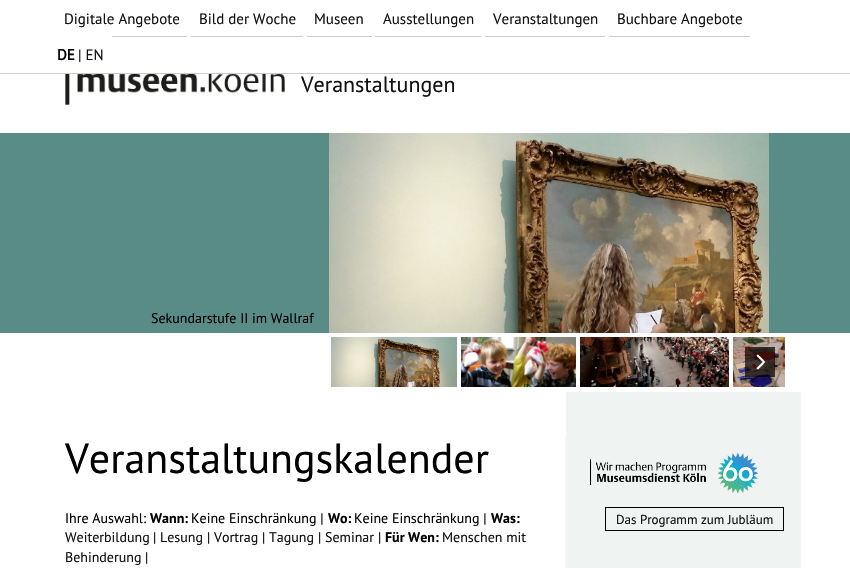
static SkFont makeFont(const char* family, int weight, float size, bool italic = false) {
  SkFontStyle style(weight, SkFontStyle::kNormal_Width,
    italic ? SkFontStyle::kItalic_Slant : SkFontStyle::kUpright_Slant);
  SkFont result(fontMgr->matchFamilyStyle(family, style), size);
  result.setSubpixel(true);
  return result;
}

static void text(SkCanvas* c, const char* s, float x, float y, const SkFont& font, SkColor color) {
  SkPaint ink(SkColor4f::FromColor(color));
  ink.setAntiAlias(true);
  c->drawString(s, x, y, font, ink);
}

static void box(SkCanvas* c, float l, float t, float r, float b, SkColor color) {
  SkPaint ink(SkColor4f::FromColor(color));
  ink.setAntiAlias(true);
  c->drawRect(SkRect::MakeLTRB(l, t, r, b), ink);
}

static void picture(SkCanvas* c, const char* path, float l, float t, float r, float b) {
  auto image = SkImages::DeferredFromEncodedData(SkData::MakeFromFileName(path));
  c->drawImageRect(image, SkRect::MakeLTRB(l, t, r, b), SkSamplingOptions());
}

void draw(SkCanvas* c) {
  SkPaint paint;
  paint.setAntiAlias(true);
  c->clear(0xffffffff);
  box(c, 0, 73, 850, 74, 0xffcccccc);
  box(c, 112, 36, 187, 37, 0xffcccccc);
  SkFont face1 = makeFont("PT Sans", 400, 15);
  text(c, "Digitale Angebote", 64, 24, face1, 0xff111111);
  box(c, 191, 36, 303, 37, 0xffcccccc);
  text(c, "Bild der Woche", 199, 24, face1, 0xff111111);
  box(c, 307, 36, 372, 37, 0xffcccccc);
  text(c, "Museen", 314, 24, face1, 0xff111111);
  box(c, 375, 36, 481, 37, 0xffcccccc);
  text(c, "Ausstellungen", 383, 24, face1, 0xff111111);
  box(c, 485, 36, 605, 37, 0xffcccccc);
  text(c, "Veranstaltungen", 493, 24, face1, 0xff111111);
  box(c, 609, 36, 750, 37, 0xffcccccc);
  text(c, "Buchbare Angebote", 617, 24, face1, 0xff111111);
  SkFont face2 = makeFont("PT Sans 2", 700, 15);
  text(c, "DE", 57, 60, face2, 0xff000000);
  text(c, "| EN", 78, 60, face1, 0xff111111);
  picture(c, "img_01.png", 65, 74, 285, 105);
  SkFont face3 = makeFont("PT Sans", 400, 22);
  text(c, "Veranstaltungen", 301, 92, face3, 0xff111111);
  box(c, 0, 133, 850, 333, 0xff5a8c87);
  SkFont face4 = makeFont("PT Sans", 400, 14);
  text(c, "Sekundarstufe II im Wallraf", 151, 323, face4, 0xff000000);
  picture(c, "img_02.png", 329, 133, 769, 333);
  picture(c, "img_03.png", 331, 337, 457, 387);
  picture(c, "img_04.png", 461, 337, 576, 387);
  picture(c, "img_05.png", 580, 337, 729, 387);
  picture(c, "img_06.png", 733, 337, 785, 387);
  box(c, 745, 347, 775, 377, 0xb3000000);
  picture(c, "img_07.png", 756, 354, 765, 370);
  box(c, 565, 437, 566, 568, 0xfff5f5f5);
  SkFont face5 = makeFont("PT Sans", 400, 42);
  text(c, "Veranstaltungskalender", 65, 473, face5, 0xff000000);
  text(c, "Ihre Auswahl:", 65, 523, face4, 0xff000000);
  SkFont face6 = makeFont("PT Sans", 700, 14);
  text(c, "Wann:", 150, 523, face6, 0xff000000);
  text(c, "Keine Einschränkung |", 191, 523, face4, 0xff000000);
  text(c, "Wo:", 328, 523, face6, 0xff000000);
  text(c, "Keine Einschränkung |", 354, 523, face4, 0xff000000);
  text(c, "Was:", 491, 523, face6, 0xff000000);
  text(c, "Weiterbildung", 65, 542, face4, 0xff111111);
  text(c, "|", 153, 542, face4, 0xff000000);
  text(c, "Lesung", 160, 542, face4, 0xff111111);
  text(c, "|", 207, 542, face4, 0xff000000);
  text(c, "Vortrag", 214, 542, face4, 0xff111111);
  text(c, "|", 262, 542, face4, 0xff000000);
  text(c, "Tagung", 269, 542, face4, 0xff111111);
  text(c, "|", 318, 542, face4, 0xff000000);
  text(c, "Seminar", 325, 542, face4, 0xff111111);
  text(c, "|", 378, 542, face4, 0xff000000);
  text(c, "Für Wen:", 385, 542, face6, 0xff000000);
  text(c, "Menschen mit", 442, 542, face4, 0xff111111);
  text(c, "Behinderung", 65, 562, face4, 0xff111111);
  text(c, "|", 145, 562, face4, 0xff000000);
  box(c, 566, 392, 800, 568, 0xffeff4f3);
  box(c, 800, 392, 801, 568, 0xfff5f5f5);
  picture(c, "img_08.png", 590, 452, 759, 494);
  paint.setStyle(SkPaint::kStroke_Style);
  paint.setStrokeWidth(1);
  paint.setColor(0xff000000);
  c->drawRect(SkRect::MakeLTRB(605.5f, 507.5f, 783.5f, 530.5f), paint);
  SkFont face7 = makeFont("PT Sans", 400, 13);
  text(c, "Das Programm zum Jubläum", 616, 524, face7, 0xff111111);
}
